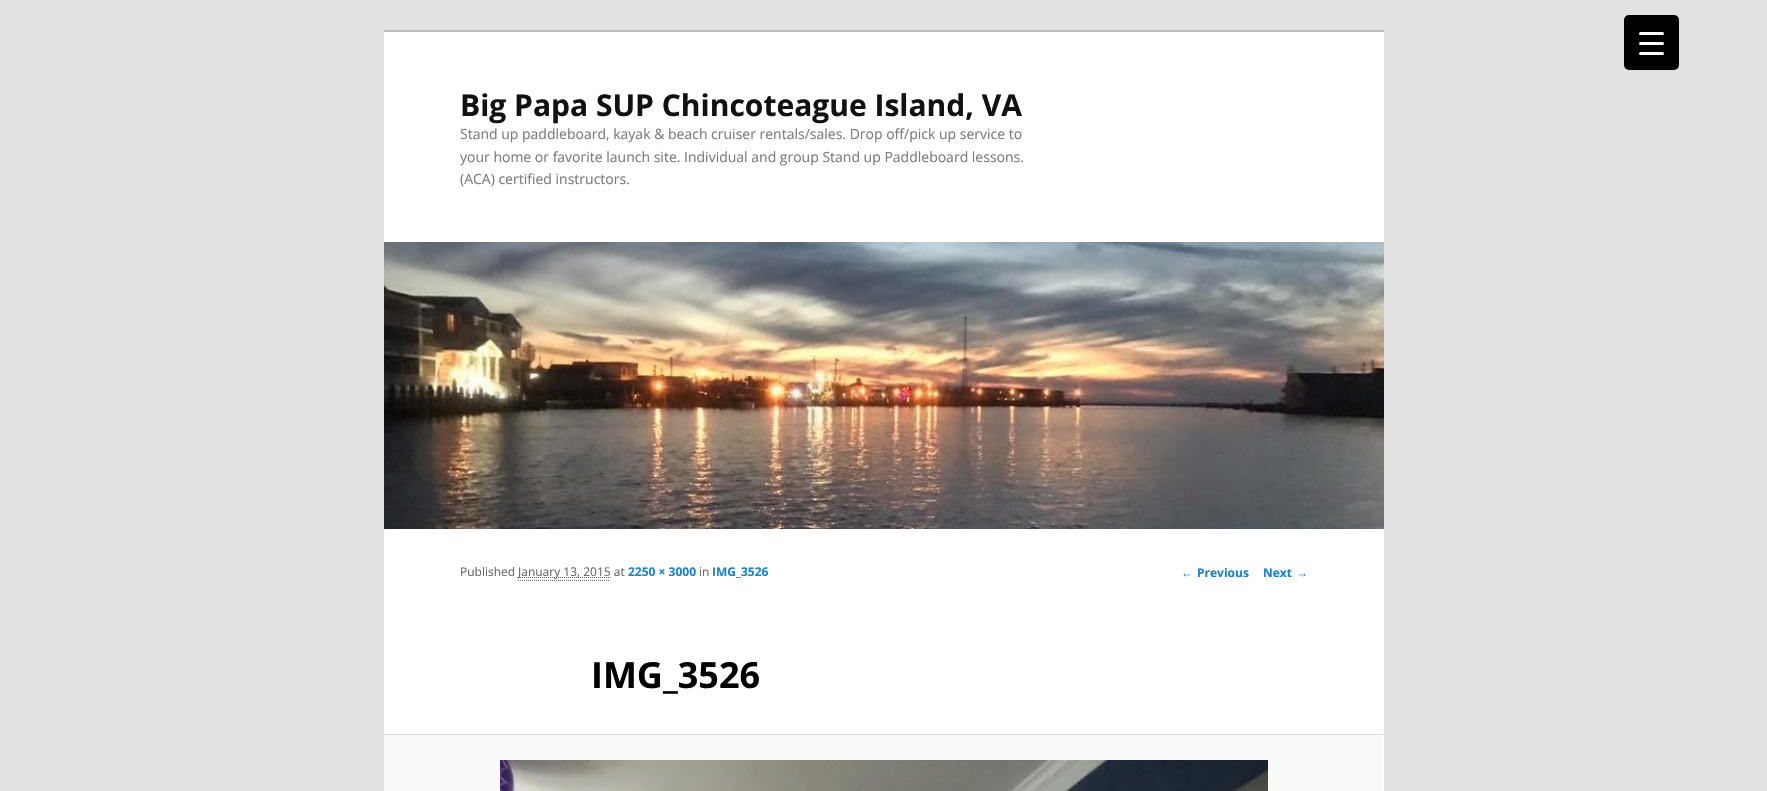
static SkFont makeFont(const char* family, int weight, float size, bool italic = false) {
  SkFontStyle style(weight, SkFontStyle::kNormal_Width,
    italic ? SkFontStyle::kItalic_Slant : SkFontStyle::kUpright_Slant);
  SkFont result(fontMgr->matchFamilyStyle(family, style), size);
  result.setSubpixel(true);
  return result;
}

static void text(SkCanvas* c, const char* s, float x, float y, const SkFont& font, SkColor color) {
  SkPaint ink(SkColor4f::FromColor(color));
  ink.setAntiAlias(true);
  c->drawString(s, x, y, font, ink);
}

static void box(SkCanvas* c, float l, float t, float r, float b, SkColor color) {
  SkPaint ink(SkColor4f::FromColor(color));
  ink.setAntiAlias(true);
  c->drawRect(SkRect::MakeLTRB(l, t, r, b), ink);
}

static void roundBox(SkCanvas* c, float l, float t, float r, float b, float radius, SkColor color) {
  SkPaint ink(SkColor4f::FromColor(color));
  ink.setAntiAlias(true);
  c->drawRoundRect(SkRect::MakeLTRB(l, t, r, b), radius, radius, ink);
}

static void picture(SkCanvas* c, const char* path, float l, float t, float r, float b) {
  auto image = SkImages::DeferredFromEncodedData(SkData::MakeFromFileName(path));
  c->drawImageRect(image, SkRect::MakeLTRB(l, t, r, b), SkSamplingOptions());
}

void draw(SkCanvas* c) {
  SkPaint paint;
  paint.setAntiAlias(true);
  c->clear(0xffe2e2e2);
  roundBox(c, 1624, 15, 1679, 70, 5, 0xff000000);
  roundBox(c, 1639, 42, 1664, 45, 1.5f, 0xffffffff);
  roundBox(c, 1639, 32, 1664, 35, 1.5f, 0xffffffff);
  roundBox(c, 1639, 52, 1664, 55, 1.5f, 0xffffffff);
  box(c, 384, 32, 1384, 791, 0xffffffff);
  box(c, 384, 30, 1384, 32, 0xffbbbbbb);
  SkFont face1 = makeFont("Open Sans", 700, 30);
  text(c, "Big Papa SUP Chincoteague Island, VA", 460, 116, face1, 0xff111111);
  SkFont face2 = makeFont("Open Sans", 400, 14);
  text(c, "Stand up paddleboard, kayak & beach cruiser rentals/sales. Drop off/pick up service to", 460, 139, face2, 0xff7a7a7a);
  text(c, "your home or favorite launch site. Individual and group Stand up Paddleboard lessons.", 460, 162, face2, 0xff7a7a7a);
  text(c, "(ACA) certified instructors.", 460, 184, face2, 0xff7a7a7a);
  picture(c, "img_01.png", 384, 242, 1384, 529);
  SkFont face3 = makeFont("Open Sans", 400, 12);
  text(c, "Published", 460, 576, face3, 0xff666666);
  paint.setStyle(SkPaint::kStroke_Style);
  paint.setStrokeWidth(1);
  paint.setColor(0xff666666);
  paint.setPathEffect(SkDashPathEffect::Make({{1, 1}}, 0));
  c->drawPath(SkPathBuilder().moveTo(518, 577.5f).lineTo(610.5f, 577.5f).detach(), paint);
  paint.setPathEffect(nullptr);
  text(c, "January 13, 2015 at", 518, 576, face3, 0xff666666);
  paint.setPathEffect(SkDashPathEffect::Make({{1, 1}}, 0));
  c->drawPath(SkPathBuilder().moveTo(518, 580.5f).lineTo(610, 580.5f).detach(), paint);
  paint.setPathEffect(nullptr);
  SkFont face4 = makeFont("Open Sans", 700, 12);
  text(c, "2250 × 3000", 628, 576, face4, 0xff1982d1);
  text(c, "in", 699, 576, face3, 0xff666666);
  text(c, "IMG_3526", 712, 576, face4, 0xff1982d1);
  SkFont face5 = makeFont("Open Sans", 700, 36);
  text(c, "IMG_3526", 591, 688, face5, 0xff000000);
  box(c, 384, 735, 1383, 791, 0xfff9f9f9);
  box(c, 384, 734, 1383, 735, 0xffdddddd);
  picture(c, "img_02.png", 500, 760, 1268, 791);
  SkFont face6 = makeFont("Liberation Sans", 700, 12);
  text(c, "←", 1181, 577, face6, 0xff1982d1);
  text(c, "Previous", 1197, 577, face4, 0xff1982d1);
  text(c, "Next", 1263, 577, face4, 0xff1982d1);
  text(c, "→", 1296, 577, face6, 0xff1982d1);
}
